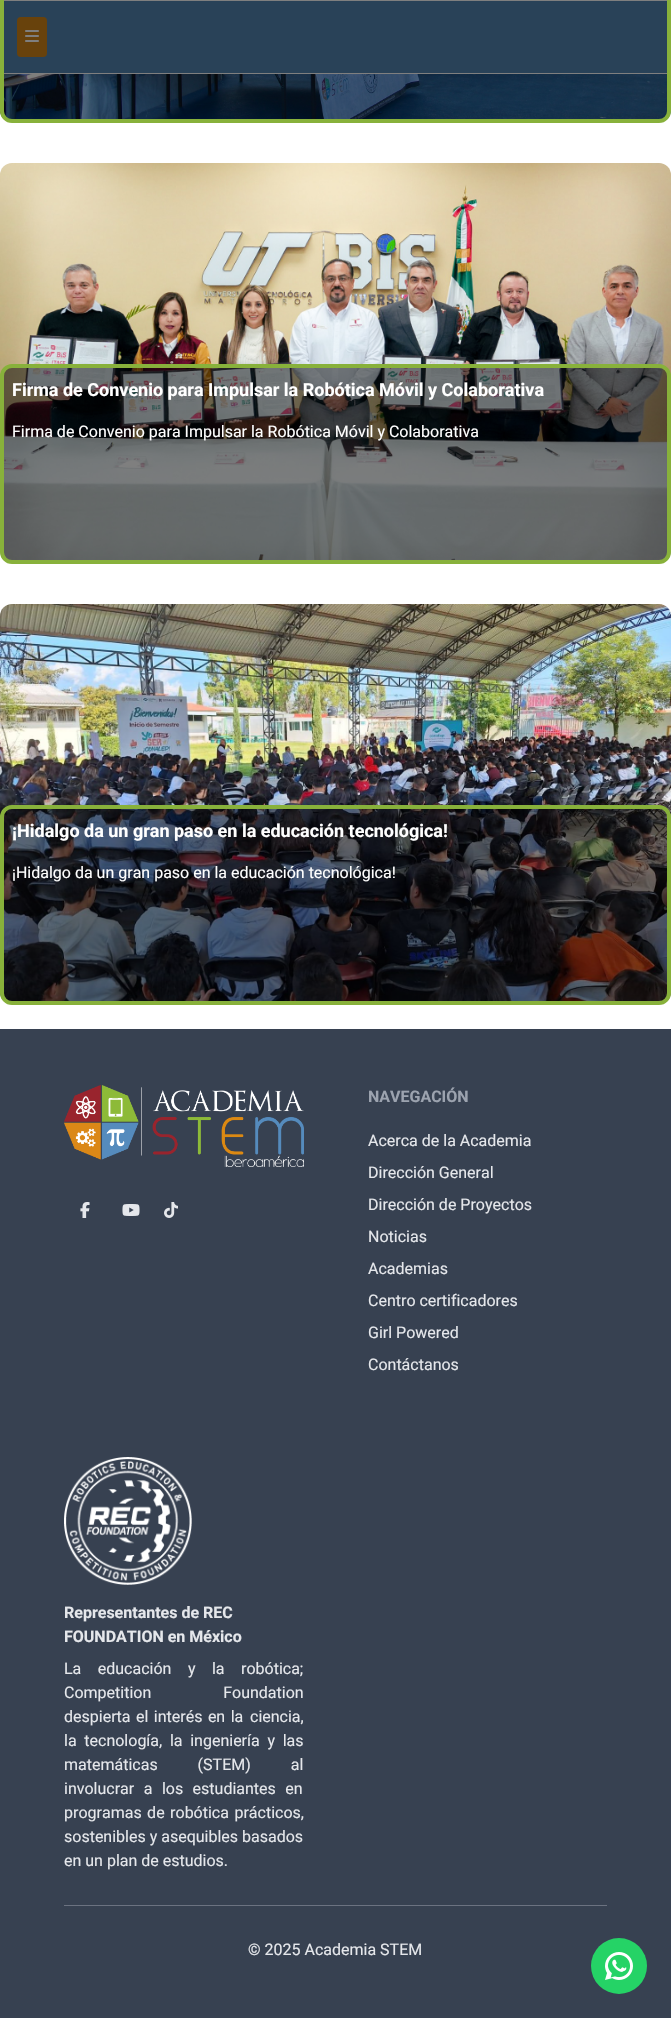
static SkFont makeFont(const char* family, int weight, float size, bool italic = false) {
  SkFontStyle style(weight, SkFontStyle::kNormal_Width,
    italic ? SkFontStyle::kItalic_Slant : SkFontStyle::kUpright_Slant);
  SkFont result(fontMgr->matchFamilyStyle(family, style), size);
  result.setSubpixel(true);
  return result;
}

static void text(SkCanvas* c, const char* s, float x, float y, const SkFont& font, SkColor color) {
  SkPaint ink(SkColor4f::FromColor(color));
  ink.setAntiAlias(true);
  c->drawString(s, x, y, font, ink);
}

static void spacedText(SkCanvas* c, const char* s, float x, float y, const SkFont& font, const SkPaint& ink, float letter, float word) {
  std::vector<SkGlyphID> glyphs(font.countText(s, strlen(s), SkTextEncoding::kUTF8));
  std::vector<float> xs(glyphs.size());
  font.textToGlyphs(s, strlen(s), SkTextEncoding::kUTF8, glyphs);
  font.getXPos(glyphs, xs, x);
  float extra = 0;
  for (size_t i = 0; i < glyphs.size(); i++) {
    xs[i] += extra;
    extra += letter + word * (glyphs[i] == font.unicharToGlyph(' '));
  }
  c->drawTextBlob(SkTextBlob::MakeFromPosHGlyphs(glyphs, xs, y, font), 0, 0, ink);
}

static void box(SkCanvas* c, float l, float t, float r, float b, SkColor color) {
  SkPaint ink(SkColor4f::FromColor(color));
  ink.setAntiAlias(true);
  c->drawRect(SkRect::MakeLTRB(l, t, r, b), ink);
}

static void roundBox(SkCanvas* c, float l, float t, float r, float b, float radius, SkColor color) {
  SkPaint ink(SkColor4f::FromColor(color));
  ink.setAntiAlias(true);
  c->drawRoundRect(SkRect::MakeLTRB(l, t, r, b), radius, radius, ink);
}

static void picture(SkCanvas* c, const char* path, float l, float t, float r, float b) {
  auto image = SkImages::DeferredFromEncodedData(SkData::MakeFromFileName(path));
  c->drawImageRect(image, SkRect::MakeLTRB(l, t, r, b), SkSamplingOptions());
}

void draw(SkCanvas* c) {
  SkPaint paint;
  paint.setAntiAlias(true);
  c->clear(0xffffffff);
  box(c, 4, 1, 667, 73, 0xff5184b1);
  roundBox(c, 17, 17, 47, 57, 4, 0xffd18517);
  picture(c, "img_01.png", 25, 30, 39, 42);
  picture(c, "img_02.png", 0, 74, 671, 122);
  paint.setColor(0x80000000);
  c->drawRoundRect(SkRect::MakeLTRB(2, -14, 669, 121), 10, 10, paint);
  paint.setStyle(SkPaint::kStroke_Style);
  paint.setStrokeWidth(4);
  paint.setColor(0xff88b13b);
  c->drawRoundRect(SkRect::MakeLTRB(2, -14, 669, 121), 10, 10, paint);
  picture(c, "img_03.png", 0, 163, 671, 563);
  paint.setStyle(SkPaint::kFill_Style);
  paint.setColor(0x80000000);
  c->drawRoundRect(SkRect::MakeLTRB(2, 366, 669, 562), 10, 10, paint);
  paint.setStyle(SkPaint::kStroke_Style);
  paint.setColor(0xff88b13b);
  c->drawRoundRect(SkRect::MakeLTRB(2, 366, 669, 562), 10, 10, paint);
  SkFont face1 = makeFont("Roboto", 700, 18);
  text(c, "Firma de Convenio para Impulsar la Robótica Móvil y Colaborativa", 12, 396, face1, 0xffffffff);
  SkFont face2 = makeFont("Roboto", 400, 16);
  text(c, "Firma de Convenio para Impulsar la Robótica Móvil y Colaborativa", 12, 437, face2, 0xffffffff);
  picture(c, "img_04.png", 0, 604, 671, 1004);
  paint.setStyle(SkPaint::kFill_Style);
  paint.setColor(0x80000000);
  c->drawRoundRect(SkRect::MakeLTRB(2, 807, 669, 1003), 10, 10, paint);
  paint.setStyle(SkPaint::kStroke_Style);
  paint.setColor(0xff88b13b);
  c->drawRoundRect(SkRect::MakeLTRB(2, 807, 669, 1003), 10, 10, paint);
  text(c, "¡Hidalgo da un gran paso en la educación tecnológica!", 12, 837, face1, 0xffffffff);
  text(c, "¡Hidalgo da un gran paso en la educación tecnológica!", 12, 878, face2, 0xffffffff);
  box(c, 0, 1029, 671, 2018, 0xff374151);
  picture(c, "img_05.png", 64, 1085, 304, 1167);
  picture(c, "img_06.png", 80, 1202, 90, 1218);
  picture(c, "img_07.png", 122, 1204, 140, 1216);
  picture(c, "img_08.png", 164, 1202, 178, 1218);
  SkFont face3 = makeFont("Roboto", 700, 16);
  text(c, "NAVEGACIÓN", 368, 1102, face3, 0xff9ca3af);
  text(c, "Acerca de la Academia", 368, 1146, face2, 0xffe5e7eb);
  text(c, "Dirección General", 368, 1178, face2, 0xffe5e7eb);
  text(c, "Dirección de Proyectos", 368, 1210, face2, 0xffe5e7eb);
  text(c, "Noticias", 368, 1242, face2, 0xffe5e7eb);
  text(c, "Academias", 368, 1274, face2, 0xffe5e7eb);
  text(c, "Centro certificadores", 368, 1306, face2, 0xffe5e7eb);
  text(c, "Girl Powered", 368, 1338, face2, 0xffe5e7eb);
  text(c, "Contáctanos", 368, 1370, face2, 0xffe5e7eb);
  picture(c, "img_09.png", 64, 1457, 192, 1585);
  text(c, "Representantes de REC", 64, 1618, face3, 0xffe5e7eb);
  text(c, "FOUNDATION en México", 64, 1642, face3, 0xffe5e7eb);
  paint.setStyle(SkPaint::kFill_Style);
  paint.setColor(0xffe5e7eb);
  spacedText(c, "La educación y la robótica;", 64, 1674, face2, paint, 0, 12.5f);
  spacedText(c, "Competition Foundation", 64, 1698, face2, paint, 0, 68);
  spacedText(c, "despierta el interés en la", 64, 1722, face2, paint, 0, 1.5f);
  text(c, "ciencia,", 250, 1722, face2, 0xffe5e7eb);
  spacedText(c, "la tecnología, la ingeniería y las", 64, 1746, face2, paint, 0, 3.75f);
  spacedText(c, "matemáticas (STEM) al", 64, 1770, face2, paint, 0, 36);
  spacedText(c, "involucrar a los estudiantes en", 64, 1794, face2, paint, 0, 5.5f);
  spacedText(c, "programas de robótica prácticos,", 64, 1818, face2, paint, 0, 1.5f);
  text(c, "sostenibles y asequibles basados", 64, 1842, face2, 0xffe5e7eb);
  text(c, "en un plan de estudios.", 64, 1866, face2, 0xffe5e7eb);
  box(c, 64, 1905, 607, 1906, 0xff6b7280);
  text(c, "© 2025 Academia STEM", 248, 1955, face2, 0xffe5e7eb);
  paint.setColor(0xff25d366);
  c->drawCircle(619, 1966, 28, paint);
  picture(c, "img_10.png", 605, 1952, 633, 1980);
}
